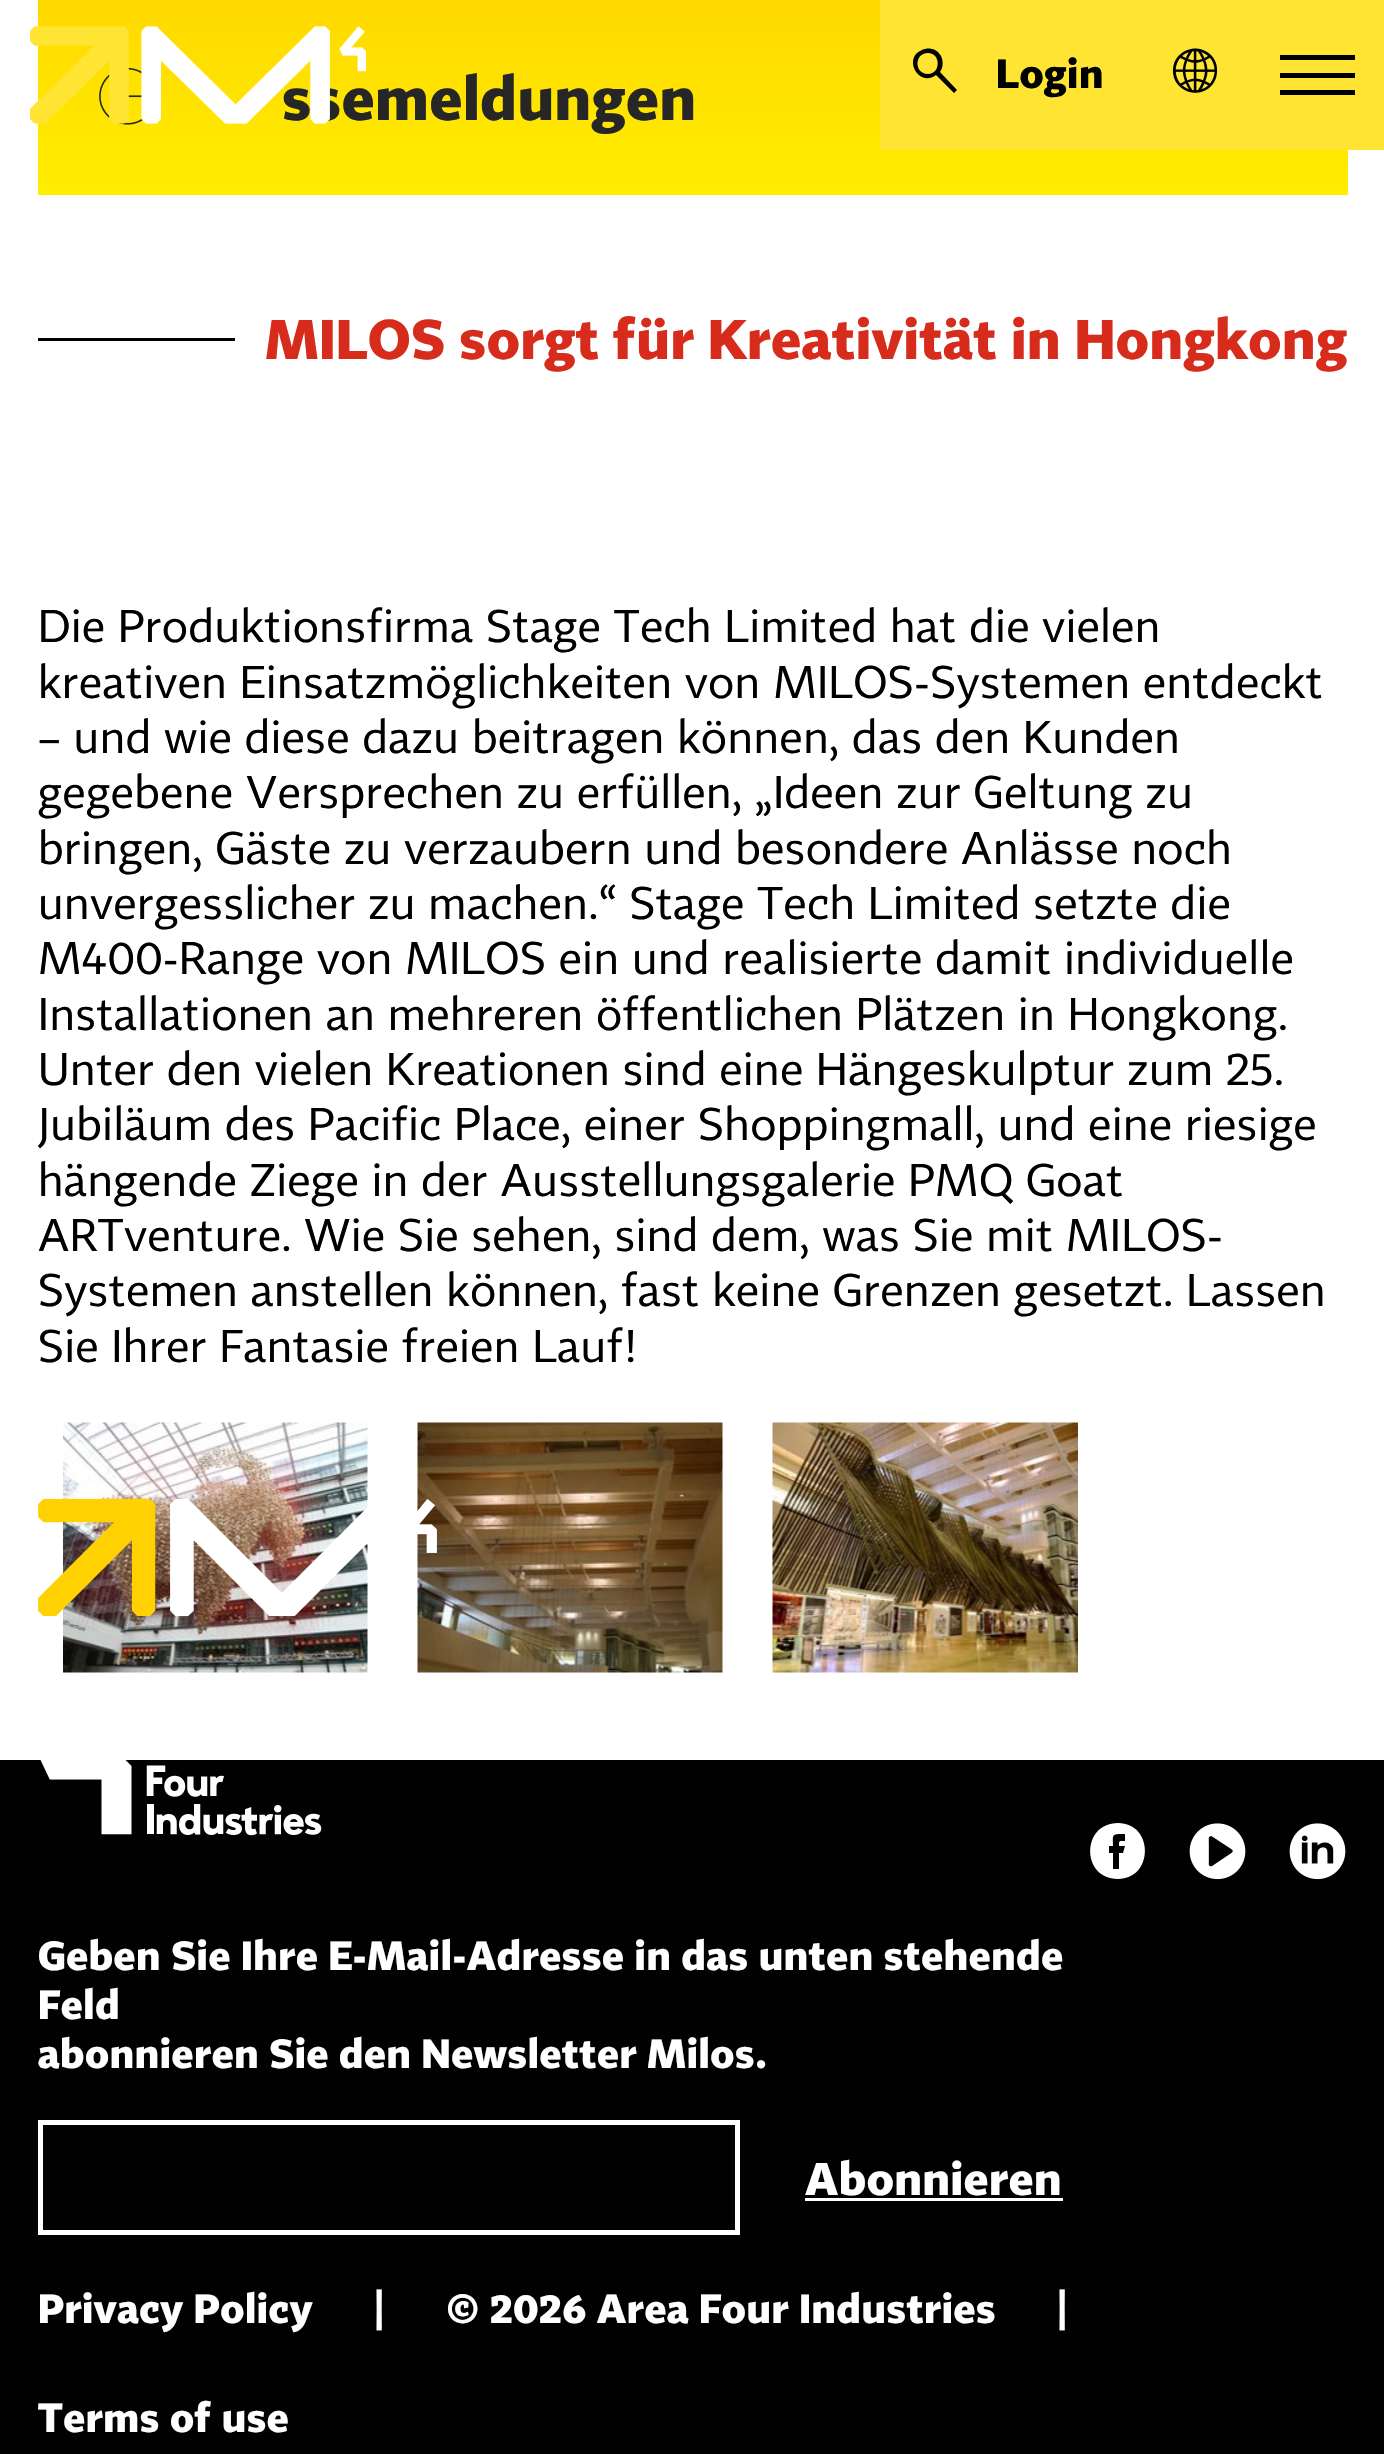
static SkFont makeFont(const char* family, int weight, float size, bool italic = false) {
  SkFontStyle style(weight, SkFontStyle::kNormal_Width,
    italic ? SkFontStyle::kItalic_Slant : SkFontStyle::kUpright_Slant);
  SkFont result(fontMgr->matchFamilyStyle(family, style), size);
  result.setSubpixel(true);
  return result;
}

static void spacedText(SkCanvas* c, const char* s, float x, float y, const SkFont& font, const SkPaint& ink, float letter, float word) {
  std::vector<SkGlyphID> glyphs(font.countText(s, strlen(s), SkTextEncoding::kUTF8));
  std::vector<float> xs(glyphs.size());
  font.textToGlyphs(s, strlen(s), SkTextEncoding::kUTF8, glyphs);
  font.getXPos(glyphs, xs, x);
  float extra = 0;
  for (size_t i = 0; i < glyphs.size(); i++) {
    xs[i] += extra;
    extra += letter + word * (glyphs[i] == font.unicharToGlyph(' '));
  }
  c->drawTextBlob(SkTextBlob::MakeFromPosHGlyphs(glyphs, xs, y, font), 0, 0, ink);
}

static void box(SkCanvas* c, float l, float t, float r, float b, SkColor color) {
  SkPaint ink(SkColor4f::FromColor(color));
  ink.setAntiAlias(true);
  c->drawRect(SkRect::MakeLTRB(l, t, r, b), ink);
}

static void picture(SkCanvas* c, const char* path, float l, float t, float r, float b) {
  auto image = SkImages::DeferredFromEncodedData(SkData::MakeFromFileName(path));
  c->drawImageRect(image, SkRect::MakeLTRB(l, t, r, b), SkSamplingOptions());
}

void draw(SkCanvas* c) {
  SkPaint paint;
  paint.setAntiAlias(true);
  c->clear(0xffffffff);
  {
    const SkColor colors[] = {0xffffd900, 0xffffed00};
    const float stops[] = {0, 1};
    const SkPoint ends[] = {{693, 0}, {693, 195}};
    paint.setShader(SkGradientShader::MakeLinear(ends, colors, stops, 2, SkTileMode::kClamp));
    paint.setAlpha(255);
  }
  c->drawRect(SkRect::MakeLTRB(38, 0, 1348, 195), paint);
  picture(c, "img_03.png", 99, 67, 143, 125);
  SkFont face1 = makeFont("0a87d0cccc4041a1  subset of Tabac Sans", 700, 60);
  paint.setShader(nullptr);
  paint.setColor(0xff262626);
  spacedText(c, "ssemeldungen", 282, 120, face1, paint, 0.62f, 0);
  picture(c, "img_01.png", 30, 26, 366, 124);
  box(c, 880, 0, 1384, 150, 0xffffe433);
  paint.setColor(0xff000000);
  c->drawPath(SkPathBuilder().moveTo(957, 90).lineTo(940, 72).cubicTo(945, 65, 943, 54, 935, 50).cubicTo(931, 48, 926, 48, 922, 50).cubicTo(902, 58, 919, 88, 936, 75).lineTo(954, 93).close().moveTo(928, 74).cubicTo(914, 74, 914, 53, 928, 53).cubicTo(941, 53, 941, 74, 928, 74).close().detach(), paint);
  SkFont face2 = makeFont("0a87d0cccc4041a1  subset of Tabac Sans", 700, 40);
  spacedText(c, "Login", 996, 88, face2, paint, 0.62f, 0);
  picture(c, "img_02.png", 1172, 48, 1218, 93);
  box(c, 1280, 73, 1355, 78, 0xff000000);
  box(c, 1280, 55, 1355, 60, 0xff000000);
  box(c, 1280, 90, 1355, 95, 0xff000000);
  box(c, 38, 338, 235, 341, 0xff000000);
  SkFont face3 = makeFont("0a87d0cccc4041a1  subset of Tabac Sans", 700, 55);
  paint.setColor(0xffd72c1c);
  spacedText(c, "MILOS sorgt für Kreativität in Hongkong", 265, 359, face3, paint, 0.62f, 0);
  SkFont face4 = makeFont("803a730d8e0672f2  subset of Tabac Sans", 400, 45);
  paint.setColor(0xff000000);
  spacedText(c, "Die Produktionsfirma Stage Tech Limited hat die vielen", 38, 642, face4, paint, 0.62f, 0);
  spacedText(c, "kreativen Einsatzmöglichkeiten von MILOS-Systemen entdeckt", 38, 698, face4, paint, 0.62f, 0);
  spacedText(c, "– und wie diese dazu beitragen können, das den Kunden", 38, 753, face4, paint, 0.62f, 0);
  spacedText(c, "gegebene Versprechen zu erfüllen, „Ideen zur Geltung zu", 38, 808, face4, paint, 0.62f, 0);
  spacedText(c, "bringen, Gäste zu verzaubern und besondere Anlässe noch", 38, 864, face4, paint, 0.62f, 0);
  spacedText(c, "unvergesslicher zu machen.“ Stage Tech Limited setzte die", 38, 919, face4, paint, 0.62f, 0);
  spacedText(c, "M400-Range von MILOS ein und realisierte damit individuelle", 38, 974, face4, paint, 0.62f, 0);
  spacedText(c, "Installationen an mehreren öffentlichen Plätzen in Hongkong.", 38, 1030, face4, paint, 0.62f, 0);
  spacedText(c, "Unter den vielen Kreationen sind eine Hängeskulptur zum 25.", 38, 1085, face4, paint, 0.62f, 0);
  spacedText(c, "Jubiläum des Pacific Place, einer Shoppingmall, und eine riesige", 38, 1140, face4, paint, 0.62f, 0);
  spacedText(c, "hängende Ziege in der Ausstellungsgalerie PMQ Goat", 38, 1196, face4, paint, 0.62f, 0);
  spacedText(c, "ARTventure. Wie Sie sehen, sind dem, was Sie mit MILOS-", 38, 1251, face4, paint, 0.62f, 0);
  spacedText(c, "Systemen anstellen können, fast keine Grenzen gesetzt. Lassen", 38, 1306, face4, paint, 0.62f, 0);
  spacedText(c, "Sie Ihrer Fantasie freien Lauf!", 38, 1362, face4, paint, 0.62f, 0);
  picture(c, "img_04.png", 63, 1422, 368, 1673);
  picture(c, "img_05.png", 417, 1422, 723, 1673);
  picture(c, "img_06.png", 772, 1422, 1078, 1673);
  box(c, 0, 1760, 1384, 2454, 0xff010101);
  picture(c, "img_07.png", 38, 1498, 437, 1617);
  picture(c, "img_08.png", 40, 1760, 322, 1836);
  paint.setColor(0xffffffff);
  c->drawPath(SkPathBuilder().moveTo(1118, 1823).cubicTo(1081, 1823, 1081, 1879, 1118, 1879).cubicTo(1154, 1879, 1154, 1823, 1118, 1823).close().moveTo(1125, 1841).cubicTo(1119, 1841, 1119, 1840, 1119, 1846).lineTo(1125, 1846).lineTo(1123, 1853).lineTo(1119, 1853).lineTo(1119, 1869).lineTo(1113, 1869).lineTo(1113, 1853).lineTo(1109, 1853).lineTo(1109, 1846).lineTo(1113, 1846).cubicTo(1113, 1834, 1111, 1834, 1125, 1834).close().detach(), paint);
  picture(c, "img_09.png", 1189, 1823, 1246, 1880);
  picture(c, "img_10.png", 1289, 1823, 1346, 1880);
  spacedText(c, "Geben Sie Ihre E-Mail-Adresse in das unten stehende", 38, 1970, face2, paint, 0.62f, 0);
  spacedText(c, "Feld", 38, 2019, face2, paint, 0.62f, 0);
  spacedText(c, "abonnieren Sie den Newsletter Milos.", 38, 2068, face2, paint, 0.62f, 0);
  paint.setStyle(SkPaint::kStroke_Style);
  paint.setStrokeWidth(5);
  c->drawRect(SkRect::MakeLTRB(40.5f, 2122.5f, 737.5f, 2232.5f), paint);
  SkFont face5 = makeFont("0a87d0cccc4041a1  subset of Tabac Sans", 700, 45);
  paint.setStyle(SkPaint::kFill_Style);
  spacedText(c, "Abonnieren", 805, 2195, face5, paint, 0.62f, 0);
  box(c, 805, 2198, 1063, 2201, 0xffffffff);
  spacedText(c, "Privacy Policy", 38, 2323, face2, paint, 0.62f, 0);
  spacedText(c, "|", 373, 2323, face2, paint, 0.62f, 0);
  spacedText(c, "© 2026 Area Four Industries", 446, 2323, face2, paint, 0.62f, 0);
  spacedText(c, "|", 1056, 2323, face2, paint, 0.62f, 0);
  spacedText(c, "Terms of use", 38, 2432, face2, paint, 0.62f, 0);
}
